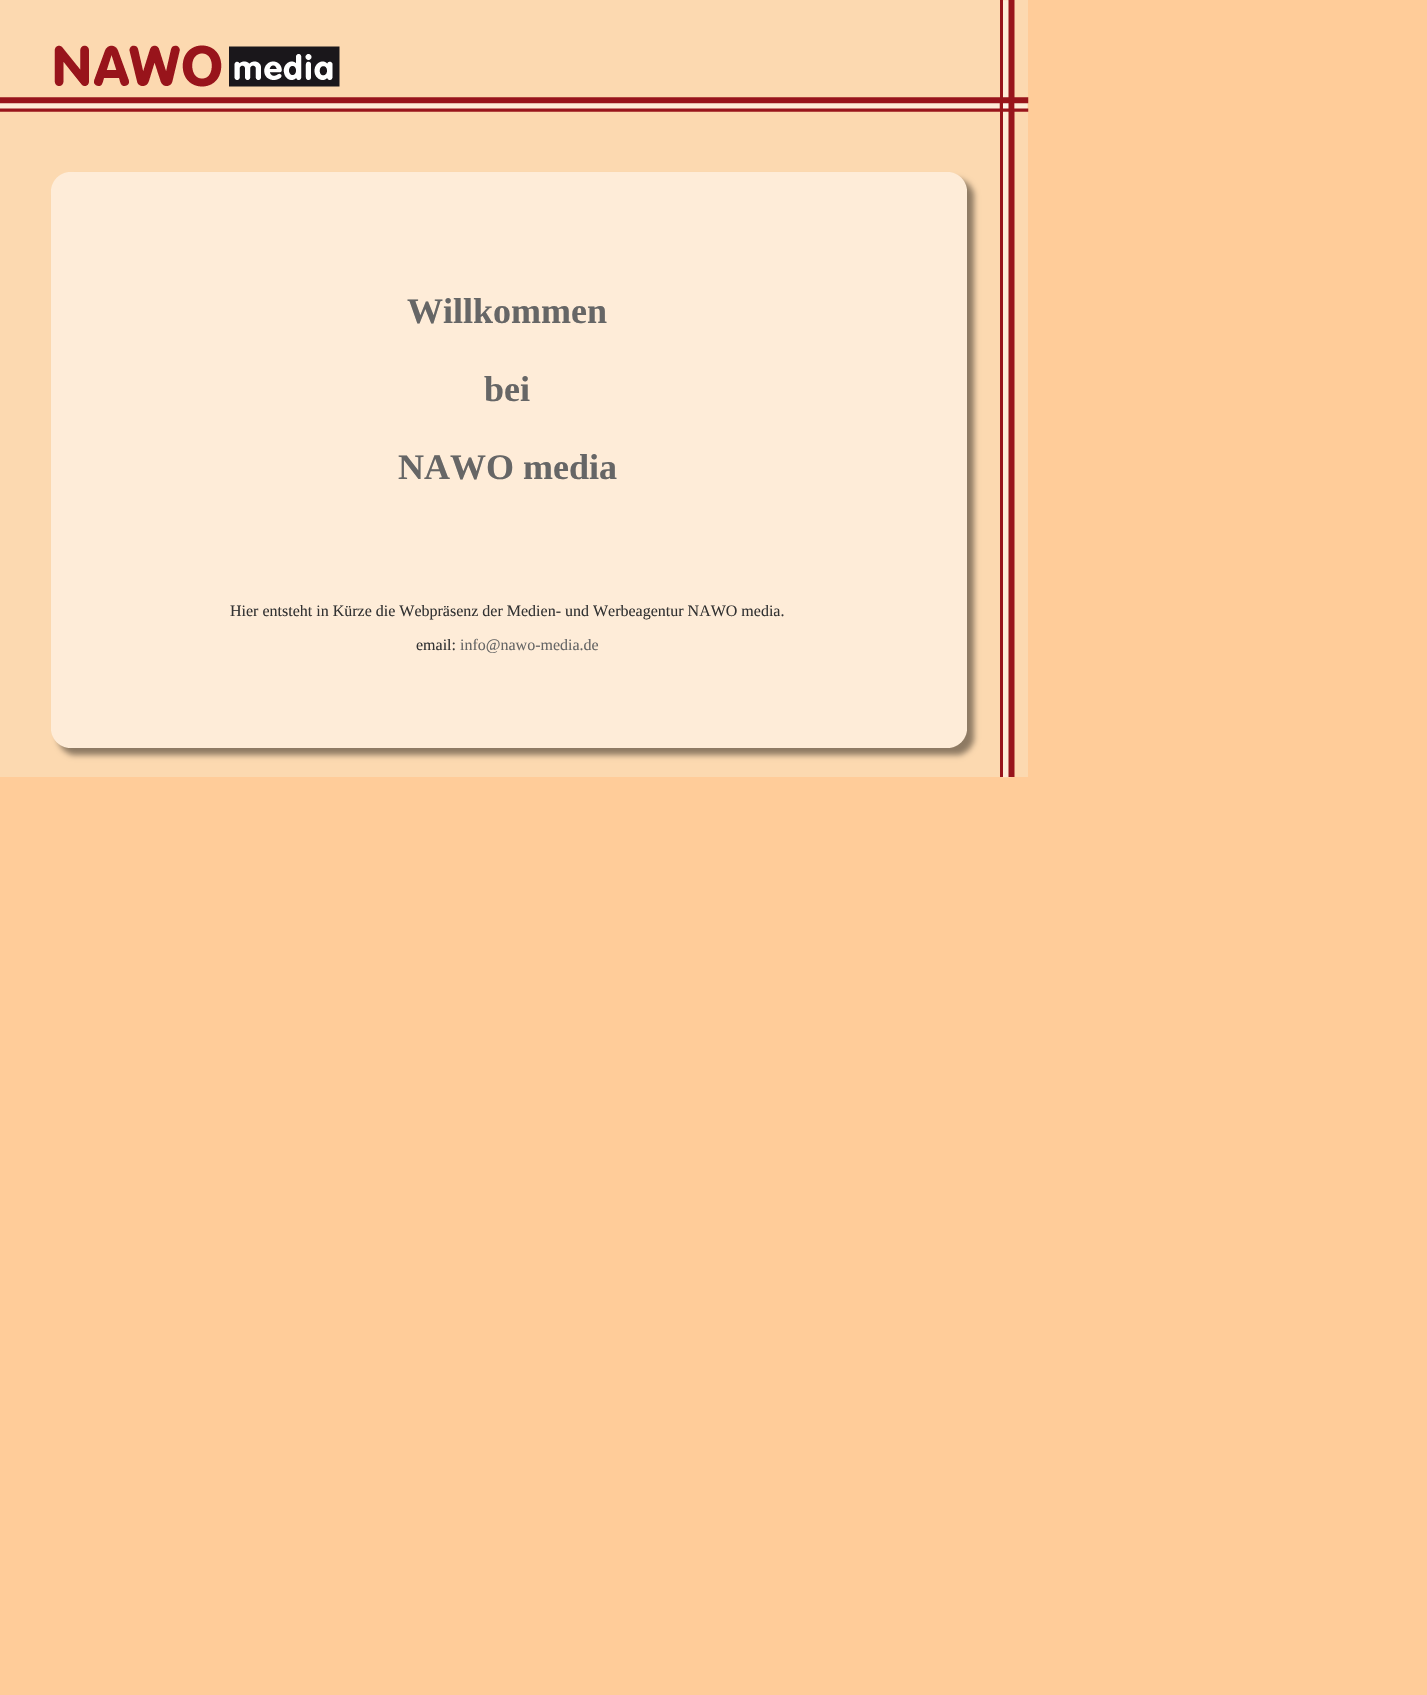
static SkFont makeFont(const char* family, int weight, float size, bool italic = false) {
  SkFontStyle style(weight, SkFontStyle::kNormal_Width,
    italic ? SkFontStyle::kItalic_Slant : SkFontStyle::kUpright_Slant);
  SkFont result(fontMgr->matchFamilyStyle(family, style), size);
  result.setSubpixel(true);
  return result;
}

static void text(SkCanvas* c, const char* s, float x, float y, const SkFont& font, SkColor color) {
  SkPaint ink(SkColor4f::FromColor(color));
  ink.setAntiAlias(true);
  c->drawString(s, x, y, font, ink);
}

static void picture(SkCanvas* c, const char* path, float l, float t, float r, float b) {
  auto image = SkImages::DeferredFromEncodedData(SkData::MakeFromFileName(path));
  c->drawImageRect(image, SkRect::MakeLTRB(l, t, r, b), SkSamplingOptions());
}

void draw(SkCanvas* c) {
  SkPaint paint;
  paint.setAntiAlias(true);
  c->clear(0xffffcc99);
  picture(c, "img_01.png", 0, 0, 1029, 778);
  SkFont face1 = makeFont("Liberation Serif", 700, 36);
  text(c, "Willkommen", 407, 323, face1, 0xff666666);
  text(c, "bei", 484, 401, face1, 0xff666666);
  text(c, "NAWO media", 398, 479, face1, 0xff666666);
  SkFont face2 = makeFont("Liberation Serif", 400, 16);
  text(c, "Hier entsteht in Kürze die Webpräsenz der Medien- und Werbeagentur NAWO media.", 230, 616, face2, 0xff333333);
  text(c, "email:", 416, 650, face2, 0xff333333);
  text(c, "info@nawo-media.de", 460, 650, face2, 0xff666666);
}
